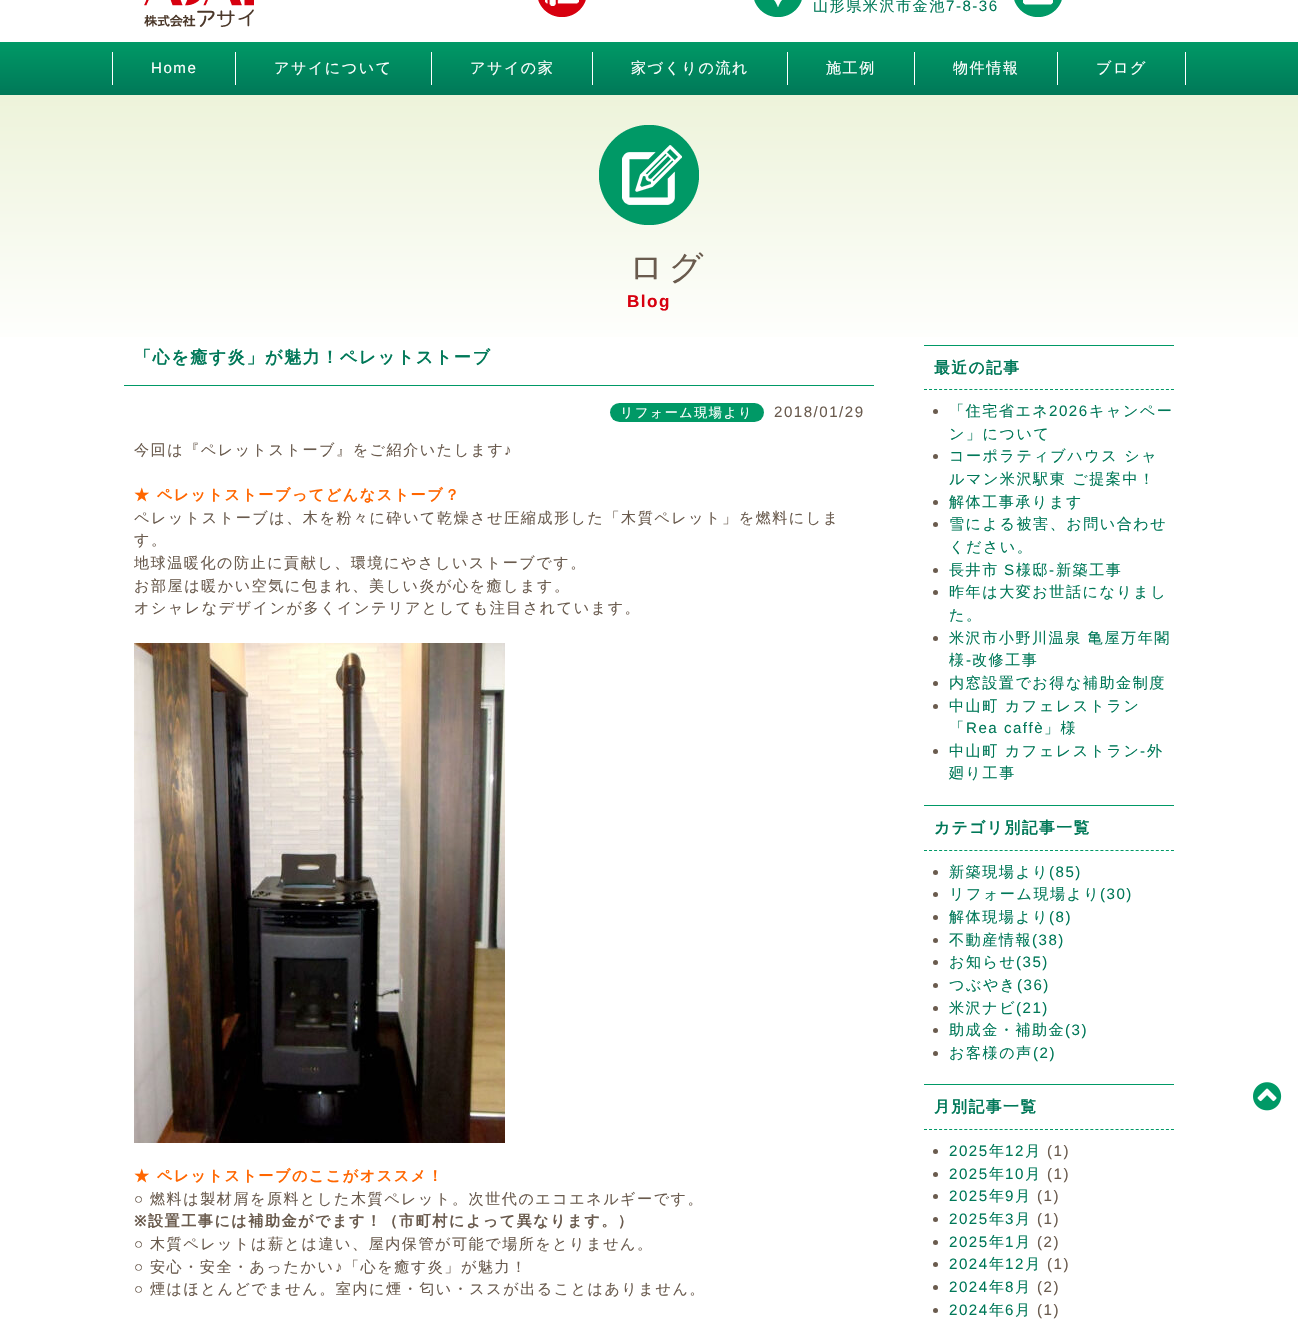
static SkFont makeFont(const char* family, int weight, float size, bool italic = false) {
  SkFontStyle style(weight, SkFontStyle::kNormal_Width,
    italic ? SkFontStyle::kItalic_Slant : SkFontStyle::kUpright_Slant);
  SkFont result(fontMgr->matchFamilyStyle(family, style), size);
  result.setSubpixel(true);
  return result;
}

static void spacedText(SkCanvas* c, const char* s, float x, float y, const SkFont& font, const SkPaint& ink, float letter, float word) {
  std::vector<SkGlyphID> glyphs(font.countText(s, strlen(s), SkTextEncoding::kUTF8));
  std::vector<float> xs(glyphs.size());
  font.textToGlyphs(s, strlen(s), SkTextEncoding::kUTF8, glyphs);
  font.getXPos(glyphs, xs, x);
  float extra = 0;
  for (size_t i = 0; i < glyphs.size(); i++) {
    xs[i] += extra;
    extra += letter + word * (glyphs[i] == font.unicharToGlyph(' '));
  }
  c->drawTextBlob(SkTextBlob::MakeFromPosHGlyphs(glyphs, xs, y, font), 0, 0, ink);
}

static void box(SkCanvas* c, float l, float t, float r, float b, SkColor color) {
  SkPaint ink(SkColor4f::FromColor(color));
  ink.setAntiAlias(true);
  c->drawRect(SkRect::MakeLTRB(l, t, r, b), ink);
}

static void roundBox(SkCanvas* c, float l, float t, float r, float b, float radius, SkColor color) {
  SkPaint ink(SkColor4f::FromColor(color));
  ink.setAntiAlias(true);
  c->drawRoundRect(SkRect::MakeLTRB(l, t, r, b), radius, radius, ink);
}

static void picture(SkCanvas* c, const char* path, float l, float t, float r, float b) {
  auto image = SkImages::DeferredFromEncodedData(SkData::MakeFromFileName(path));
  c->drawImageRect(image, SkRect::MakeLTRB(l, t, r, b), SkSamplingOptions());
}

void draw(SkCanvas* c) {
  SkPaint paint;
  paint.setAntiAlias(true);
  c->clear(0xffffffff);
  picture(c, "img_01.png", 144, 0, 254, 27);
  picture(c, "img_02.png", 538, 0, 586, 17);
  picture(c, "img_03.png", 754, 0, 802, 17);
  SkFont face1 = makeFont("WenQuanYi Zen Hei", 500, 15.1f);
  paint.setColor(0xff007858);
  spacedText(c, "山形県米沢市金池", 813, 11, face1, paint, 1.5f, 0);
  SkFont face2 = makeFont("Liberation Sans", 400, 15.1f);
  spacedText(c, "7-8-36", 946, 11, face2, paint, 1.5f, 0);
  picture(c, "img_04.png", 1014, 0, 1062, 17);
  {
    const SkColor colors[] = {0xff009966, 0xff007858};
    const float stops[] = {0, 1};
    const SkPoint ends[] = {{649, 42}, {649, 95}};
    paint.setShader(SkGradientShader::MakeLinear(ends, colors, stops, 2, SkTileMode::kClamp));
    paint.setAlpha(255);
  }
  c->drawRect(SkRect::MakeLTRB(0, 42, 1298, 95), paint);
  box(c, 112, 52, 113, 85, 0xffffffff);
  paint.setShader(nullptr);
  paint.setColor(0xffffffff);
  spacedText(c, "Home", 151, 73, face2, paint, 1.5f, 0);
  box(c, 235, 52, 236, 85, 0xffffffff);
  spacedText(c, "アサイについて", 274, 73, face1, paint, 1.5f, 0);
  box(c, 431, 52, 432, 85, 0xffffffff);
  spacedText(c, "アサイの家", 470, 73, face1, paint, 1.5f, 0);
  box(c, 592, 52, 593, 85, 0xffffffff);
  spacedText(c, "家づくりの流れ", 631, 73, face1, paint, 1.5f, 0);
  box(c, 787, 52, 788, 85, 0xffffffff);
  spacedText(c, "施工例", 826, 73, face1, paint, 1.5f, 0);
  box(c, 914, 52, 915, 85, 0xffffffff);
  spacedText(c, "物件情報", 953, 73, face1, paint, 1.5f, 0);
  box(c, 1185, 52, 1186, 85, 0xffffffff);
  box(c, 1057, 52, 1058, 85, 0xffffffff);
  spacedText(c, "ブログ", 1096, 73, face1, paint, 1.5f, 0);
  {
    const SkColor colors[] = {0xffedf3da, 0xffffffff};
    const float stops[] = {0, 0.09f};
    const SkPoint ends[] = {{649, 95}, {649, 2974}};
    paint.setShader(SkGradientShader::MakeLinear(ends, colors, stops, 2, SkTileMode::kClamp));
    paint.setAlpha(255);
  }
  c->drawRect(SkRect::MakeLTRB(0, 95, 1298, 337), paint);
  picture(c, "img_05.png", 599, 125, 699, 225);
  SkFont face3 = makeFont("Noto Sans", 400, 34);
  paint.setShader(nullptr);
  paint.setColor(0xffd7000f);
  spacedText(c, "ブ", 589, 279, face3, paint, 5, 0);
  SkFont face4 = makeFont("WenQuanYi Zen Hei", 500, 34);
  paint.setColor(0xff6a5b4e);
  spacedText(c, "ログ", 629, 279, face4, paint, 5, 0);
  SkFont face5 = makeFont("Liberation Sans", 700, 17.1f);
  paint.setColor(0xffd7000f);
  spacedText(c, "Blog", 627, 307, face5, paint, 1.5f, 0);
  box(c, 124, 385, 874, 386, 0xff009966);
  SkFont face6 = makeFont("WenQuanYi Zen Hei", 700, 17.1f);
  paint.setColor(0xff007858);
  spacedText(c, "「心を癒す炎」が魅力！ペレットストーブ", 134, 363, face6, paint, 1.5f, 0);
  roundBox(c, 610, 403, 764, 422, 9.5f, 0xff009966);
  SkFont face7 = makeFont("WenQuanYi Zen Hei", 500, 13.1f);
  paint.setColor(0xffffffff);
  spacedText(c, "リフォーム現場より", 620, 417, face7, paint, 1.5f, 0);
  paint.setColor(0xff6a5b4e);
  spacedText(c, "2018/01/29", 774, 417, face2, paint, 1.5f, 0);
  spacedText(c, "今回は『ペレットストーブ』をご紹介いたします", 134, 455, face1, paint, 1.5f, 0);
  spacedText(c, "♪", 504, 455, face2, paint, 1.5f, 0);
  SkFont face8 = makeFont("WenQuanYi Zen Hei", 700, 15.1f);
  paint.setColor(0xffff6600);
  spacedText(c, "★ ペレットストーブってどんなストーブ？", 134, 500, face8, paint, 1.5f, 0);
  paint.setColor(0xff6a5b4e);
  spacedText(c, "ペレットストーブは、木を粉々に砕いて乾燥させ圧縮成形した「木質ペレット」を燃料にしま", 134, 523, face1, paint, 1.5f, 0);
  spacedText(c, "す。", 134, 545, face1, paint, 1.5f, 0);
  spacedText(c, "地球温暖化の防止に貢献し、環境にやさしいストーブです。", 134, 568, face1, paint, 1.5f, 0);
  spacedText(c, "お部屋は暖かい空気に包まれ、美しい炎が心を癒します。", 134, 591, face1, paint, 1.5f, 0);
  spacedText(c, "オシャレなデザインが多くインテリアとしても注目されています。", 134, 613, face1, paint, 1.5f, 0);
  picture(c, "img_06.png", 134, 643, 505, 1143);
  paint.setColor(0xffff6600);
  spacedText(c, "★ ペレットストーブのここがオススメ！", 134, 1181, face8, paint, 1.5f, 0);
  paint.setColor(0xff6a5b4e);
  spacedText(c, "○", 134, 1204, face2, paint, 1.5f, 0);
  spacedText(c, "燃料は製材屑を原料とした木質ペレット。次世代のエコエネルギーです。", 150, 1204, face1, paint, 1.5f, 0);
  SkFont face9 = makeFont("Noto Sans", 700, 15.1f);
  spacedText(c, "※", 134, 1226, face9, paint, 1.5f, 0);
  spacedText(c, "設置工事には補助金がでます！（市町村によって異なります。）", 148, 1226, face8, paint, 1.5f, 0);
  spacedText(c, "○", 134, 1249, face2, paint, 1.5f, 0);
  spacedText(c, "木質ペレットは薪とは違い、屋内保管が可能で場所をとりません。", 150, 1249, face1, paint, 1.5f, 0);
  spacedText(c, "○", 134, 1272, face2, paint, 1.5f, 0);
  spacedText(c, "安心・安全・あったかい", 150, 1272, face1, paint, 1.5f, 0);
  spacedText(c, "♪", 335, 1272, face2, paint, 1.5f, 0);
  spacedText(c, "「心を癒す炎」が魅力！", 344, 1272, face1, paint, 1.5f, 0);
  spacedText(c, "○", 134, 1294, face2, paint, 1.5f, 0);
  spacedText(c, "煙はほとんどでません。室内に煙・匂い・ススが出ることはありません。", 150, 1294, face1, paint, 1.5f, 0);
  box(c, 924, 345, 1174, 346, 0xff009966);
  paint.setStyle(SkPaint::kStroke_Style);
  paint.setStrokeWidth(1);
  paint.setColor(0xff009966);
  paint.setPathEffect(SkDashPathEffect::Make({{3, 2.04f}}, 0));
  c->drawPath(SkPathBuilder().moveTo(924, 389.5f).lineTo(1174, 389.5f).detach(), paint);
  paint.setPathEffect(nullptr);
  SkFont face10 = makeFont("WenQuanYi Zen Hei", 700, 15.75f);
  paint.setStyle(SkPaint::kFill_Style);
  paint.setColor(0xff007858);
  spacedText(c, "最近の記事", 934, 373, face10, paint, 1.5f, 0);
  paint.setColor(0xff6a5b4e);
  c->drawCircle(935.5f, 411.5f, 2.5f, paint);
  paint.setColor(0xff007858);
  spacedText(c, "「住宅省エネ", 949, 416, face1, paint, 1.5f, 0);
  spacedText(c, "2026", 1049, 416, face2, paint, 1.5f, 0);
  spacedText(c, "キャンペー", 1089, 416, face1, paint, 1.5f, 0);
  spacedText(c, "ン」について", 949, 439, face1, paint, 1.5f, 0);
  paint.setColor(0xff6a5b4e);
  c->drawCircle(935.5f, 456.5f, 2.5f, paint);
  paint.setColor(0xff007858);
  spacedText(c, "コーポラティブハウス シャ", 949, 461, face1, paint, 1.5f, 0);
  spacedText(c, "ルマン米沢駅東 ご提案中！", 949, 484, face1, paint, 1.5f, 0);
  paint.setColor(0xff6a5b4e);
  c->drawCircle(935.5f, 502.5f, 2.5f, paint);
  paint.setColor(0xff007858);
  spacedText(c, "解体工事承ります", 949, 507, face1, paint, 1.5f, 0);
  paint.setColor(0xff6a5b4e);
  c->drawCircle(935.5f, 524.5f, 2.5f, paint);
  paint.setColor(0xff007858);
  spacedText(c, "雪による被害、お問い合わせ", 949, 529, face1, paint, 1.5f, 0);
  spacedText(c, "ください。", 949, 552, face1, paint, 1.5f, 0);
  paint.setColor(0xff6a5b4e);
  c->drawCircle(935.5f, 570.5f, 2.5f, paint);
  paint.setColor(0xff007858);
  spacedText(c, "長井市", 949, 575, face1, paint, 1.5f, 0);
  spacedText(c, "S", 1004, 575, face2, paint, 1.5f, 0);
  spacedText(c, "様邸", 1016, 575, face1, paint, 1.5f, 0);
  spacedText(c, "-", 1049, 575, face2, paint, 1.5f, 0);
  spacedText(c, "新築工事", 1056, 575, face1, paint, 1.5f, 0);
  paint.setColor(0xff6a5b4e);
  c->drawCircle(935.5f, 592.5f, 2.5f, paint);
  paint.setColor(0xff007858);
  spacedText(c, "昨年は大変お世話になりまし", 949, 597, face1, paint, 1.5f, 0);
  spacedText(c, "た。", 949, 620, face1, paint, 1.5f, 0);
  paint.setColor(0xff6a5b4e);
  c->drawCircle(935.5f, 638.5f, 2.5f, paint);
  paint.setColor(0xff007858);
  spacedText(c, "米沢市小野川温泉 亀屋万年閣", 949, 643, face1, paint, 1.5f, 0);
  spacedText(c, "様", 949, 665, face1, paint, 1.5f, 0);
  spacedText(c, "-", 966, 665, face2, paint, 1.5f, 0);
  spacedText(c, "改修工事", 972, 665, face1, paint, 1.5f, 0);
  paint.setColor(0xff6a5b4e);
  c->drawCircle(935.5f, 683.5f, 2.5f, paint);
  paint.setColor(0xff007858);
  spacedText(c, "内窓設置でお得な補助金制度", 949, 688, face1, paint, 1.5f, 0);
  paint.setColor(0xff6a5b4e);
  c->drawCircle(935.5f, 706.5f, 2.5f, paint);
  paint.setColor(0xff007858);
  spacedText(c, "中山町 カフェレストラン", 949, 711, face1, paint, 1.5f, 0);
  spacedText(c, "「", 949, 733, face1, paint, 1.5f, 0);
  spacedText(c, "Rea caffè", 966, 733, face2, paint, 1.5f, 0);
  spacedText(c, "」様", 1044, 733, face1, paint, 1.5f, 0);
  paint.setColor(0xff6a5b4e);
  c->drawCircle(935.5f, 751.5f, 2.5f, paint);
  paint.setColor(0xff007858);
  spacedText(c, "中山町 カフェレストラン", 949, 756, face1, paint, 1.5f, 0);
  spacedText(c, "-", 1140, 756, face2, paint, 1.5f, 0);
  spacedText(c, "外", 1147, 756, face1, paint, 1.5f, 0);
  spacedText(c, "廻り工事", 949, 778, face1, paint, 1.5f, 0);
  box(c, 924, 805, 1174, 806, 0xff009966);
  paint.setStyle(SkPaint::kStroke_Style);
  paint.setColor(0xff009966);
  paint.setPathEffect(SkDashPathEffect::Make({{3, 2.04f}}, 0));
  c->drawPath(SkPathBuilder().moveTo(924, 850.5f).lineTo(1174, 850.5f).detach(), paint);
  paint.setPathEffect(nullptr);
  paint.setStyle(SkPaint::kFill_Style);
  paint.setColor(0xff007858);
  spacedText(c, "カテゴリ別記事一覧", 934, 833, face10, paint, 1.5f, 0);
  paint.setColor(0xff6a5b4e);
  c->drawCircle(935.5f, 872.5f, 2.5f, paint);
  paint.setColor(0xff007858);
  spacedText(c, "新築現場より", 949, 877, face1, paint, 1.5f, 0);
  spacedText(c, "(85)", 1049, 877, face2, paint, 1.5f, 0);
  paint.setColor(0xff6a5b4e);
  c->drawCircle(935.5f, 894.5f, 2.5f, paint);
  paint.setColor(0xff007858);
  spacedText(c, "リフォーム現場より", 949, 899, face1, paint, 1.5f, 0);
  spacedText(c, "(30)", 1100, 899, face2, paint, 1.5f, 0);
  paint.setColor(0xff6a5b4e);
  c->drawCircle(935.5f, 917.5f, 2.5f, paint);
  paint.setColor(0xff007858);
  spacedText(c, "解体現場より", 949, 922, face1, paint, 1.5f, 0);
  spacedText(c, "(8)", 1049, 922, face2, paint, 1.5f, 0);
  paint.setColor(0xff6a5b4e);
  c->drawCircle(935.5f, 940.5f, 2.5f, paint);
  paint.setColor(0xff007858);
  spacedText(c, "不動産情報", 949, 945, face1, paint, 1.5f, 0);
  spacedText(c, "(38)", 1032, 945, face2, paint, 1.5f, 0);
  paint.setColor(0xff6a5b4e);
  c->drawCircle(935.5f, 962.5f, 2.5f, paint);
  paint.setColor(0xff007858);
  spacedText(c, "お知らせ", 949, 967, face1, paint, 1.5f, 0);
  spacedText(c, "(35)", 1016, 967, face2, paint, 1.5f, 0);
  paint.setColor(0xff6a5b4e);
  c->drawCircle(935.5f, 985.5f, 2.5f, paint);
  paint.setColor(0xff007858);
  spacedText(c, "つぶやき", 949, 990, face1, paint, 1.5f, 0);
  spacedText(c, "(36)", 1017, 990, face2, paint, 1.5f, 0);
  paint.setColor(0xff6a5b4e);
  c->drawCircle(935.5f, 1008.5f, 2.5f, paint);
  paint.setColor(0xff007858);
  spacedText(c, "米沢ナビ", 949, 1013, face1, paint, 1.5f, 0);
  spacedText(c, "(21)", 1016, 1013, face2, paint, 1.5f, 0);
  paint.setColor(0xff6a5b4e);
  c->drawCircle(935.5f, 1030.5f, 2.5f, paint);
  paint.setColor(0xff007858);
  spacedText(c, "助成金・補助金", 949, 1035, face1, paint, 1.5f, 0);
  spacedText(c, "(3)", 1065, 1035, face2, paint, 1.5f, 0);
  paint.setColor(0xff6a5b4e);
  c->drawCircle(935.5f, 1053.5f, 2.5f, paint);
  paint.setColor(0xff007858);
  spacedText(c, "お客様の声", 949, 1058, face1, paint, 1.5f, 0);
  spacedText(c, "(2)", 1033, 1058, face2, paint, 1.5f, 0);
  box(c, 924, 1084, 1174, 1085, 0xff009966);
  paint.setStyle(SkPaint::kStroke_Style);
  paint.setColor(0xff009966);
  paint.setPathEffect(SkDashPathEffect::Make({{3, 2.04f}}, 0));
  c->drawPath(SkPathBuilder().moveTo(924, 1129.5f).lineTo(1174, 1129.5f).detach(), paint);
  paint.setPathEffect(nullptr);
  paint.setStyle(SkPaint::kFill_Style);
  paint.setColor(0xff007858);
  spacedText(c, "月別記事一覧", 934, 1112, face10, paint, 1.5f, 0);
  paint.setColor(0xff6a5b4e);
  c->drawCircle(935.5f, 1151.5f, 2.5f, paint);
  paint.setColor(0xff007858);
  spacedText(c, "2025", 949, 1156, face2, paint, 1.5f, 0);
  spacedText(c, "年", 989, 1156, face1, paint, 1.5f, 0);
  spacedText(c, "12", 1005, 1156, face2, paint, 1.5f, 0);
  spacedText(c, "月", 1025, 1156, face1, paint, 1.5f, 0);
  paint.setColor(0xff6a5b4e);
  spacedText(c, "(1)", 1047, 1156, face2, paint, 1.5f, 0);
  c->drawCircle(935.5f, 1174.5f, 2.5f, paint);
  paint.setColor(0xff007858);
  spacedText(c, "2025", 949, 1179, face2, paint, 1.5f, 0);
  spacedText(c, "年", 989, 1179, face1, paint, 1.5f, 0);
  spacedText(c, "10", 1005, 1179, face2, paint, 1.5f, 0);
  spacedText(c, "月", 1025, 1179, face1, paint, 1.5f, 0);
  paint.setColor(0xff6a5b4e);
  spacedText(c, "(1)", 1047, 1179, face2, paint, 1.5f, 0);
  c->drawCircle(935.5f, 1196.5f, 2.5f, paint);
  paint.setColor(0xff007858);
  spacedText(c, "2025", 949, 1201, face2, paint, 1.5f, 0);
  spacedText(c, "年", 989, 1201, face1, paint, 1.5f, 0);
  spacedText(c, "9", 1005, 1201, face2, paint, 1.5f, 0);
  spacedText(c, "月", 1015, 1201, face1, paint, 1.5f, 0);
  paint.setColor(0xff6a5b4e);
  spacedText(c, "(1)", 1037, 1201, face2, paint, 1.5f, 0);
  c->drawCircle(935.5f, 1219.5f, 2.5f, paint);
  paint.setColor(0xff007858);
  spacedText(c, "2025", 949, 1224, face2, paint, 1.5f, 0);
  spacedText(c, "年", 989, 1224, face1, paint, 1.5f, 0);
  spacedText(c, "3", 1005, 1224, face2, paint, 1.5f, 0);
  spacedText(c, "月", 1015, 1224, face1, paint, 1.5f, 0);
  paint.setColor(0xff6a5b4e);
  spacedText(c, "(1)", 1037, 1224, face2, paint, 1.5f, 0);
  c->drawCircle(935.5f, 1242.5f, 2.5f, paint);
  paint.setColor(0xff007858);
  spacedText(c, "2025", 949, 1247, face2, paint, 1.5f, 0);
  spacedText(c, "年", 989, 1247, face1, paint, 1.5f, 0);
  spacedText(c, "1", 1005, 1247, face2, paint, 1.5f, 0);
  spacedText(c, "月", 1015, 1247, face1, paint, 1.5f, 0);
  paint.setColor(0xff6a5b4e);
  spacedText(c, "(2)", 1037, 1247, face2, paint, 1.5f, 0);
  c->drawCircle(935.5f, 1264.5f, 2.5f, paint);
  paint.setColor(0xff007858);
  spacedText(c, "2024", 949, 1269, face2, paint, 1.5f, 0);
  spacedText(c, "年", 989, 1269, face1, paint, 1.5f, 0);
  spacedText(c, "12", 1005, 1269, face2, paint, 1.5f, 0);
  spacedText(c, "月", 1025, 1269, face1, paint, 1.5f, 0);
  paint.setColor(0xff6a5b4e);
  spacedText(c, "(1)", 1047, 1269, face2, paint, 1.5f, 0);
  c->drawCircle(935.5f, 1287.5f, 2.5f, paint);
  paint.setColor(0xff007858);
  spacedText(c, "2024", 949, 1292, face2, paint, 1.5f, 0);
  spacedText(c, "年", 989, 1292, face1, paint, 1.5f, 0);
  spacedText(c, "8", 1005, 1292, face2, paint, 1.5f, 0);
  spacedText(c, "月", 1015, 1292, face1, paint, 1.5f, 0);
  paint.setColor(0xff6a5b4e);
  spacedText(c, "(2)", 1037, 1292, face2, paint, 1.5f, 0);
  c->drawCircle(935.5f, 1310.5f, 2.5f, paint);
  paint.setColor(0xff007858);
  spacedText(c, "2024", 949, 1315, face2, paint, 1.5f, 0);
  spacedText(c, "年", 989, 1315, face1, paint, 1.5f, 0);
  spacedText(c, "6", 1005, 1315, face2, paint, 1.5f, 0);
  spacedText(c, "月", 1015, 1315, face1, paint, 1.5f, 0);
  paint.setColor(0xff6a5b4e);
  spacedText(c, "(1)", 1037, 1315, face2, paint, 1.5f, 0);
  picture(c, "img_07.png", 1253, 1082, 1282, 1111);
}
